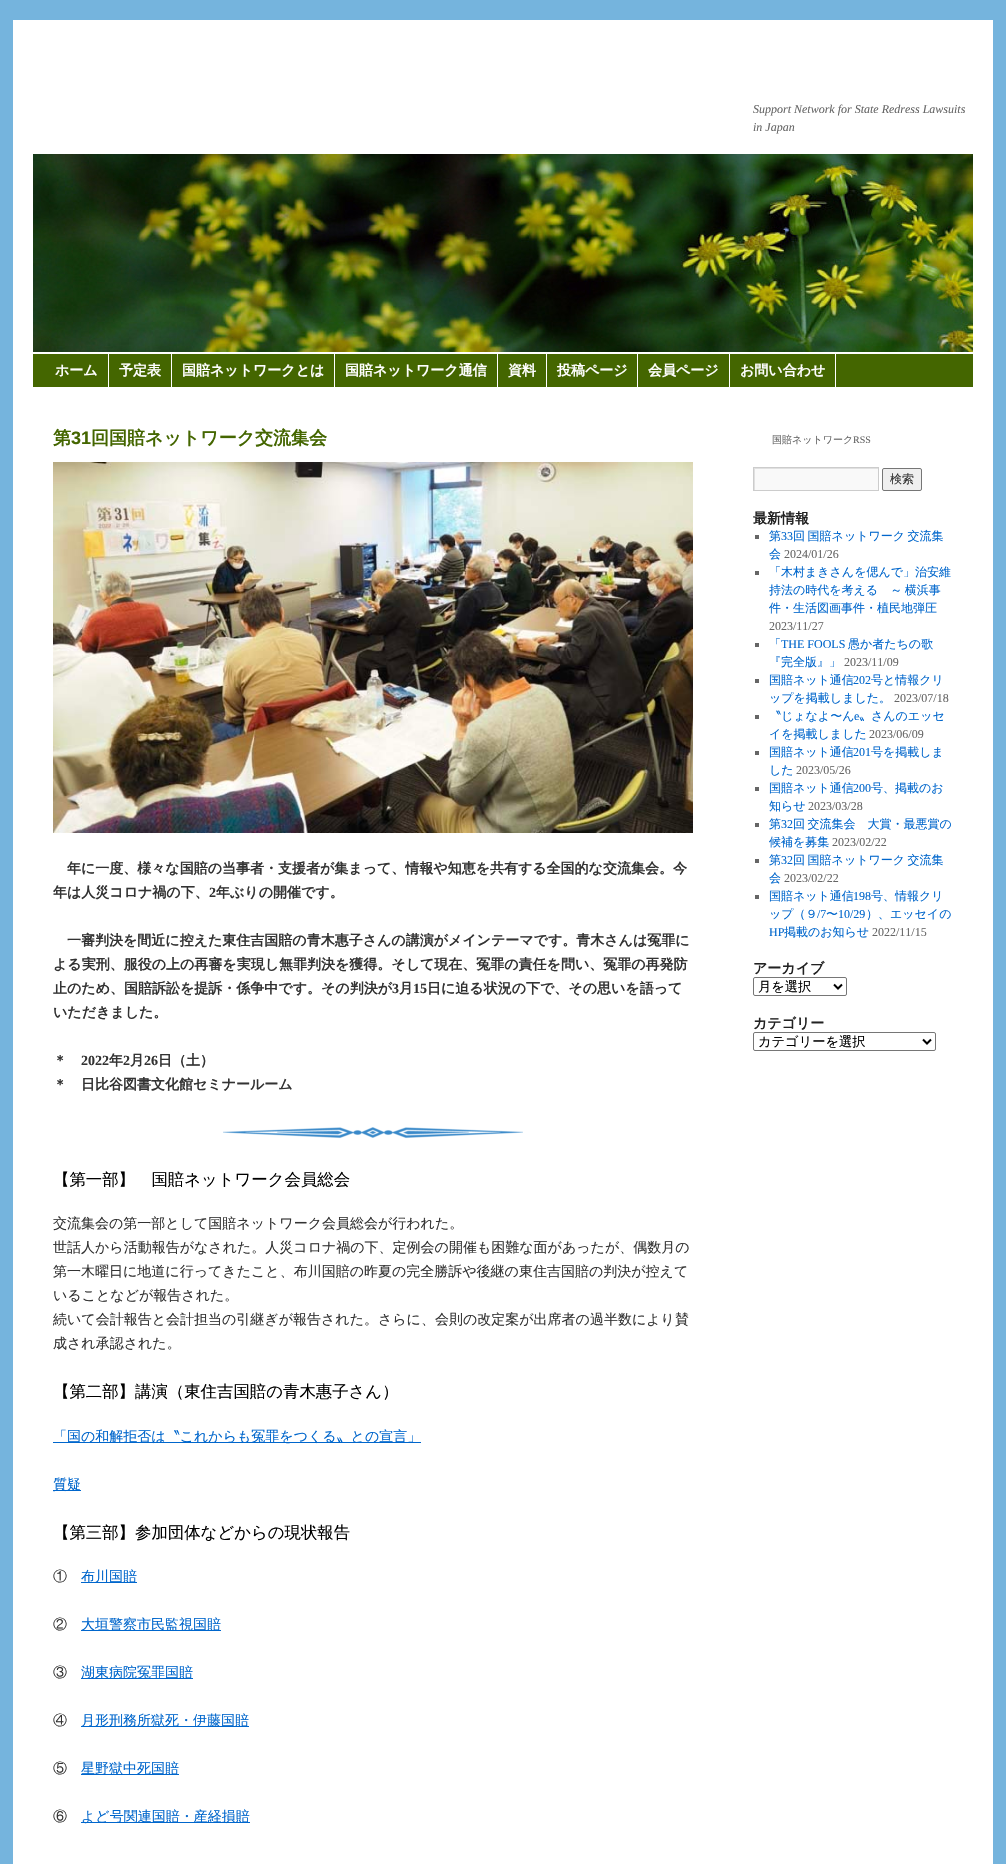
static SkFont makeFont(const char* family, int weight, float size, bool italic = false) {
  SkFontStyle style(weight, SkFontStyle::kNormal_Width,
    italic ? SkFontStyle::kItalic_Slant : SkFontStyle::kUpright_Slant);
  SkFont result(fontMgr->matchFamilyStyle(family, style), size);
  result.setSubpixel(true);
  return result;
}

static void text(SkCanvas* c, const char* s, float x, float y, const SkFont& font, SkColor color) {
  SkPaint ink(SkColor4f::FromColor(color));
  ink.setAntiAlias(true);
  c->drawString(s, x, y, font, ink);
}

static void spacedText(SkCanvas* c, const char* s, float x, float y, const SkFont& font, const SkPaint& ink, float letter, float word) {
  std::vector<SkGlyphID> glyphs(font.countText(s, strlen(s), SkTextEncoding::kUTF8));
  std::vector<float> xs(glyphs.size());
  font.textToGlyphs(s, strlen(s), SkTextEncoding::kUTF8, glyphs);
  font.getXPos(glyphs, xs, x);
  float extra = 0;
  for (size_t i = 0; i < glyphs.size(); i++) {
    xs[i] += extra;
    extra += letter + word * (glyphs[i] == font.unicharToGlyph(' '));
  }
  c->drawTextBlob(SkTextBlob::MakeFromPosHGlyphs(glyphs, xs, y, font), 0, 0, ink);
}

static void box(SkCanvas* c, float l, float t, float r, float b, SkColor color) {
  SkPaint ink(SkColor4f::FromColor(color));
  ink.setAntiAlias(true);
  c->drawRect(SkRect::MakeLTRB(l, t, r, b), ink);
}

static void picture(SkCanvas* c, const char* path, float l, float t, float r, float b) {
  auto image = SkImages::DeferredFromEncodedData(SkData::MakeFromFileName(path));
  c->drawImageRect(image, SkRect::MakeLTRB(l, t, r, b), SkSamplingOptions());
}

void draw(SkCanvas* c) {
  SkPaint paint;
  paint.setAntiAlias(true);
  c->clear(0xff75b4dd);
  box(c, 13, 20, 993, 1864, 0xffffffff);
  SkFont face1 = makeFont("Liberation Serif", 400, 12, true);
  text(c, "Support Network for State Redress Lawsuits", 753, 113, face1, 0xff666666);
  text(c, "in Japan", 753, 131, face1, 0xff666666);
  picture(c, "img_01.png", 33, 154, 973, 352);
  box(c, 33, 354, 973, 387, 0xff446600);
  box(c, 108, 354, 109, 387, 0xffffffff);
  SkFont face2 = makeFont("WenQuanYi Zen Hei", 700, 14);
  text(c, "ホーム", 55, 375, face2, 0xffffffff);
  box(c, 171, 354, 172, 387, 0xffffffff);
  text(c, "予定表", 119, 375, face2, 0xffffffff);
  box(c, 334, 354, 335, 387, 0xffffffff);
  text(c, "国賠ネットワークとは", 182, 375, face2, 0xffffffff);
  box(c, 497, 354, 498, 387, 0xffffffff);
  text(c, "国賠ネットワーク通信", 345, 375, face2, 0xffffffff);
  box(c, 546, 354, 547, 387, 0xffffffff);
  text(c, "資料", 508, 375, face2, 0xffffffff);
  box(c, 637, 354, 638, 387, 0xffffffff);
  text(c, "投稿ページ", 557, 375, face2, 0xffffffff);
  box(c, 729, 354, 730, 387, 0xffffffff);
  text(c, "会員ページ", 648, 375, face2, 0xffffffff);
  box(c, 835, 354, 836, 387, 0xffffffff);
  text(c, "お問い合わせ", 740, 375, face2, 0xffffffff);
  SkFont face3 = makeFont("WenQuanYi Zen Hei", 700, 18);
  text(c, "第", 53, 444, face3, 0xff446600);
  SkFont face4 = makeFont("Liberation Sans", 700, 18);
  text(c, "31", 71, 444, face4, 0xff446600);
  text(c, "回国賠ネットワーク交流集会", 91, 444, face3, 0xff446600);
  picture(c, "img_02.png", 53, 462, 693, 833);
  text(c, "年に一度、様々な国賠の当事者・支援者が集まって、情報や知恵を共有する全国的な交流集会。今", 67, 873, face2, 0xff333333);
  text(c, "年は人災コロナ禍の下、", 53, 897, face2, 0xff333333);
  SkFont face5 = makeFont("Liberation Serif", 700, 14);
  text(c, "2", 209, 897, face5, 0xff333333);
  text(c, "年ぶりの開催です。", 216, 897, face2, 0xff333333);
  text(c, "一審判決を間近に控えた東住吉国賠の青木惠子さんの講演がメインテーマです。青木さんは冤罪に", 67, 945, face2, 0xff333333);
  text(c, "よる実刑、服役の上の再審を実現し無罪判決を獲得。そして現在、冤罪の責任を問い、冤罪の再発防", 53, 969, face2, 0xff333333);
  text(c, "止のため、国賠訴訟を提訴・係争中です。その判決が", 53, 993, face2, 0xff333333);
  text(c, "3", 392, 993, face5, 0xff333333);
  text(c, "月", 399, 993, face2, 0xff333333);
  text(c, "15", 413, 993, face5, 0xff333333);
  text(c, "日に迫る状況の下で、その思いを語って", 427, 993, face2, 0xff333333);
  text(c, "いただきました。", 53, 1017, face2, 0xff333333);
  text(c, "＊", 53, 1065, face2, 0xff333333);
  text(c, "2022", 81, 1065, face5, 0xff333333);
  text(c, "年", 109, 1065, face2, 0xff333333);
  text(c, "2", 123, 1065, face5, 0xff333333);
  text(c, "月", 130, 1065, face2, 0xff333333);
  text(c, "26", 144, 1065, face5, 0xff333333);
  text(c, "日（土）", 158, 1065, face2, 0xff333333);
  text(c, "＊　日比谷図書文化館セミナールーム", 53, 1089, face2, 0xff333333);
  picture(c, "img_03.png", 223, 1127, 523, 1139);
  SkFont face6 = makeFont("WenQuanYi Zen Hei", 500, 16.4f);
  text(c, "【第一部】　国賠ネットワーク会員総会", 53, 1185, face6, 0xff000000);
  SkFont face7 = makeFont("WenQuanYi Zen Hei", 500, 14);
  text(c, "交流集会の第一部として国賠ネットワーク会員総会が行われた。", 53, 1228, face7, 0xff333333);
  text(c, "世話人から活動報告がなされた。人災コロナ禍の下、定例会の開催も困難な面があったが、偶数月の", 53, 1252, face7, 0xff333333);
  text(c, "第一木曜日に地道に行ってきたこと、布川国賠の昨夏の完全勝訴や後継の東住吉国賠の判決が控えて", 53, 1276, face7, 0xff333333);
  text(c, "いることなどが報告された。", 53, 1300, face7, 0xff333333);
  text(c, "続いて会計報告と会計担当の引継ぎが報告された。さらに、会則の改定案が出席者の過半数により賛", 53, 1324, face7, 0xff333333);
  text(c, "成され承認された。", 53, 1348, face7, 0xff333333);
  text(c, "【第二部】講演（東住吉国賠の青木惠子さん）", 53, 1397, face6, 0xff000000);
  box(c, 53, 1442, 421, 1443, 0xff0066cc);
  text(c, "「国の和解拒否は〝これからも冤罪をつくる〟との宣言」", 53, 1441, face7, 0xff0066cc);
  box(c, 53, 1490, 81, 1491, 0xff0066cc);
  text(c, "質疑", 53, 1489, face7, 0xff0066cc);
  text(c, "【第三部】参加団体などからの現状報告", 53, 1538, face6, 0xff000000);
  text(c, "①", 53, 1581, face7, 0xff333333);
  box(c, 81, 1582, 137, 1583, 0xff0066cc);
  text(c, "布川国賠", 81, 1581, face7, 0xff0066cc);
  text(c, "②", 53, 1629, face7, 0xff333333);
  box(c, 81, 1630, 221, 1631, 0xff0066cc);
  text(c, "大垣警察市民監視国賠", 81, 1629, face7, 0xff0066cc);
  text(c, "③", 53, 1677, face7, 0xff333333);
  box(c, 81, 1678, 193, 1679, 0xff0066cc);
  text(c, "湖東病院冤罪国賠", 81, 1677, face7, 0xff0066cc);
  text(c, "④", 53, 1725, face7, 0xff333333);
  box(c, 81, 1726, 249, 1727, 0xff0066cc);
  text(c, "月形刑務所獄死・伊藤国賠", 81, 1725, face7, 0xff0066cc);
  text(c, "⑤", 53, 1773, face7, 0xff333333);
  box(c, 81, 1774, 179, 1775, 0xff0066cc);
  text(c, "星野獄中死国賠", 81, 1773, face7, 0xff0066cc);
  text(c, "⑥", 53, 1821, face7, 0xff333333);
  box(c, 81, 1822, 250, 1823, 0xff0066cc);
  text(c, "よど号関連国賠・産経損賠", 81, 1821, face7, 0xff0066cc);
  SkFont face8 = makeFont("WenQuanYi Zen Hei", 500, 10);
  text(c, "国賠ネットワーク", 772, 443, face8, 0xff666666);
  SkFont face9 = makeFont("Liberation Serif", 400, 10);
  text(c, "RSS", 853, 443, face9, 0xff666666);
  box(c, 755, 469, 878, 490, 0xfff9f9f9);
  c->save();
  c->clipRect(SkRect::MakeLTRB(754, 468, 878, 490));
  paint.setColor(0xffe0e0e0);
  c->drawPath(SkPathBuilder(SkPathFillType::kEvenOdd).moveTo(655, 369).lineTo(977, 369).lineTo(977, 589).lineTo(655, 589).close().moveTo(755, 469).lineTo(879, 469).lineTo(879, 491).lineTo(755, 491).close().detach(), paint);
  c->restore();
  paint.setStyle(SkPaint::kStroke_Style);
  paint.setStrokeWidth(1);
  paint.setColor(0xffcccccc);
  c->drawRect(SkRect::MakeLTRB(753.5f, 467.5f, 878.5f, 490.5f), paint);
  paint.setStyle(SkPaint::kFill_Style);
  paint.setColor(0xffefefef);
  c->drawRoundRect(SkRect::MakeLTRB(882.5f, 468.5f, 921.5f, 490.5f), 1.5f, 1.5f, paint);
  paint.setStyle(SkPaint::kStroke_Style);
  paint.setColor(0xff767676);
  c->drawRoundRect(SkRect::MakeLTRB(882.5f, 468.5f, 921.5f, 490.5f), 1.5f, 1.5f, paint);
  SkFont face10 = makeFont("WenQuanYi Zen Hei", 500, 12);
  text(c, "検索", 890, 483, face10, 0xff333333);
  text(c, "最新情報", 753, 523, face2, 0xff222222);
  box(c, 755, 535, 759, 539, 0xff666666);
  text(c, "第", 769, 540, face10, 0xff0066cc);
  SkFont face11 = makeFont("Liberation Serif", 400, 12);
  text(c, "33", 781, 540, face11, 0xff0066cc);
  paint.setStyle(SkPaint::kFill_Style);
  paint.setColor(0xff0066cc);
  spacedText(c, "回 国賠ネットワーク 交流集", 793, 540, face10, paint, 0, -1);
  text(c, "会", 769, 558, face10, 0xff0066cc);
  text(c, "2024/01/26", 784, 558, face11, 0xff666666);
  box(c, 755, 571, 759, 575, 0xff666666);
  text(c, "「木村まきさんを偲んで」治安維", 769, 576, face10, 0xff0066cc);
  spacedText(c, "持法の時代を考える　～ 横浜事", 769, 594, face10, paint, 0, -1);
  text(c, "件・生活図画事件・植民地弾圧", 769, 612, face10, 0xff0066cc);
  text(c, "2023/11/27", 769, 630, face11, 0xff666666);
  box(c, 755, 643, 759, 647, 0xff666666);
  text(c, "「", 769, 648, face10, 0xff0066cc);
  text(c, "THE FOOLS", 781, 648, face11, 0xff0066cc);
  text(c, "愚か者たちの歌", 848, 648, face10, 0xff0066cc);
  text(c, "『完全版』」", 769, 666, face10, 0xff0066cc);
  text(c, "2023/11/09", 844, 666, face11, 0xff666666);
  box(c, 755, 679, 759, 683, 0xff666666);
  text(c, "国賠ネット通信", 769, 684, face10, 0xff0066cc);
  text(c, "202", 853, 684, face11, 0xff0066cc);
  text(c, "号と情報クリ", 871, 684, face10, 0xff0066cc);
  text(c, "ップを掲載しました。", 769, 702, face10, 0xff0066cc);
  text(c, "2023/07/18", 894, 702, face11, 0xff666666);
  box(c, 755, 715, 759, 719, 0xff666666);
  text(c, "〝じょなよ〜ん", 769, 720, face10, 0xff0066cc);
  text(c, "e", 854, 720, face11, 0xff0066cc);
  text(c, "〟さんのエッセ", 859, 720, face10, 0xff0066cc);
  text(c, "イを掲載しました", 769, 738, face10, 0xff0066cc);
  text(c, "2023/06/09", 869, 738, face11, 0xff666666);
  box(c, 755, 751, 759, 755, 0xff666666);
  text(c, "国賠ネット通信", 769, 756, face10, 0xff0066cc);
  text(c, "201", 853, 756, face11, 0xff0066cc);
  text(c, "号を掲載しま", 871, 756, face10, 0xff0066cc);
  text(c, "した", 769, 774, face10, 0xff0066cc);
  text(c, "2023/05/26", 796, 774, face11, 0xff666666);
  box(c, 755, 787, 759, 791, 0xff666666);
  text(c, "国賠ネット通信", 769, 792, face10, 0xff0066cc);
  text(c, "200", 853, 792, face11, 0xff0066cc);
  text(c, "号、掲載のお", 871, 792, face10, 0xff0066cc);
  text(c, "知らせ", 769, 810, face10, 0xff0066cc);
  text(c, "2023/03/28", 808, 810, face11, 0xff666666);
  box(c, 755, 823, 759, 827, 0xff666666);
  text(c, "第", 769, 828, face10, 0xff0066cc);
  text(c, "32", 781, 828, face11, 0xff0066cc);
  spacedText(c, "回 交流集会　大賞・最悪賞の", 793, 828, face10, paint, 0, -1);
  text(c, "候補を募集", 769, 846, face10, 0xff0066cc);
  text(c, "2023/02/22", 832, 846, face11, 0xff666666);
  box(c, 755, 859, 759, 863, 0xff666666);
  text(c, "第", 769, 864, face10, 0xff0066cc);
  text(c, "32", 781, 864, face11, 0xff0066cc);
  spacedText(c, "回 国賠ネットワーク 交流集", 793, 864, face10, paint, 0, -1);
  text(c, "会", 769, 882, face10, 0xff0066cc);
  text(c, "2023/02/22", 784, 882, face11, 0xff666666);
  box(c, 755, 895, 759, 899, 0xff666666);
  text(c, "国賠ネット通信", 769, 900, face10, 0xff0066cc);
  text(c, "198", 853, 900, face11, 0xff0066cc);
  text(c, "号、情報クリ", 871, 900, face10, 0xff0066cc);
  text(c, "ップ（９", 769, 918, face10, 0xff0066cc);
  text(c, "/7", 817, 918, face11, 0xff0066cc);
  text(c, "〜", 826, 918, face10, 0xff0066cc);
  text(c, "10/29", 838, 918, face11, 0xff0066cc);
  text(c, "）、エッセイの", 866, 918, face10, 0xff0066cc);
  text(c, "HP", 769, 936, face11, 0xff0066cc);
  text(c, "掲載のお知らせ", 784, 936, face10, 0xff0066cc);
  text(c, "2022/11/15", 872, 936, face11, 0xff666666);
  text(c, "アーカイブ", 753, 973, face2, 0xff222222);
  paint.setStyle(SkPaint::kStroke_Style);
  paint.setColor(0xff767676);
  c->drawRoundRect(SkRect::MakeLTRB(753.5f, 977.5f, 846.5f, 995.5f), 1.5f, 1.5f, paint);
  paint.setStrokeWidth(2);
  paint.setColor(0xff000000);
  c->drawPath(SkPathBuilder().moveTo(834, 984.5f).lineTo(838, 988.5f).lineTo(842, 984.5f).detach(), paint);
  SkFont face12 = makeFont("WenQuanYi Zen Hei", 500, 13.25f);
  text(c, "月を選択", 758, 991, face12, 0xff000000);
  text(c, "カテゴリー", 753, 1028, face2, 0xff222222);
  paint.setStrokeWidth(1);
  paint.setColor(0xff767676);
  c->drawRoundRect(SkRect::MakeLTRB(753.5f, 1032.5f, 935.5f, 1050.5f), 1.5f, 1.5f, paint);
  paint.setStrokeWidth(2);
  paint.setColor(0xff000000);
  c->drawPath(SkPathBuilder().moveTo(923, 1039.5f).lineTo(927, 1043.5f).lineTo(931, 1039.5f).detach(), paint);
  text(c, "カテゴリーを選択", 758, 1046, face12, 0xff000000);
}
